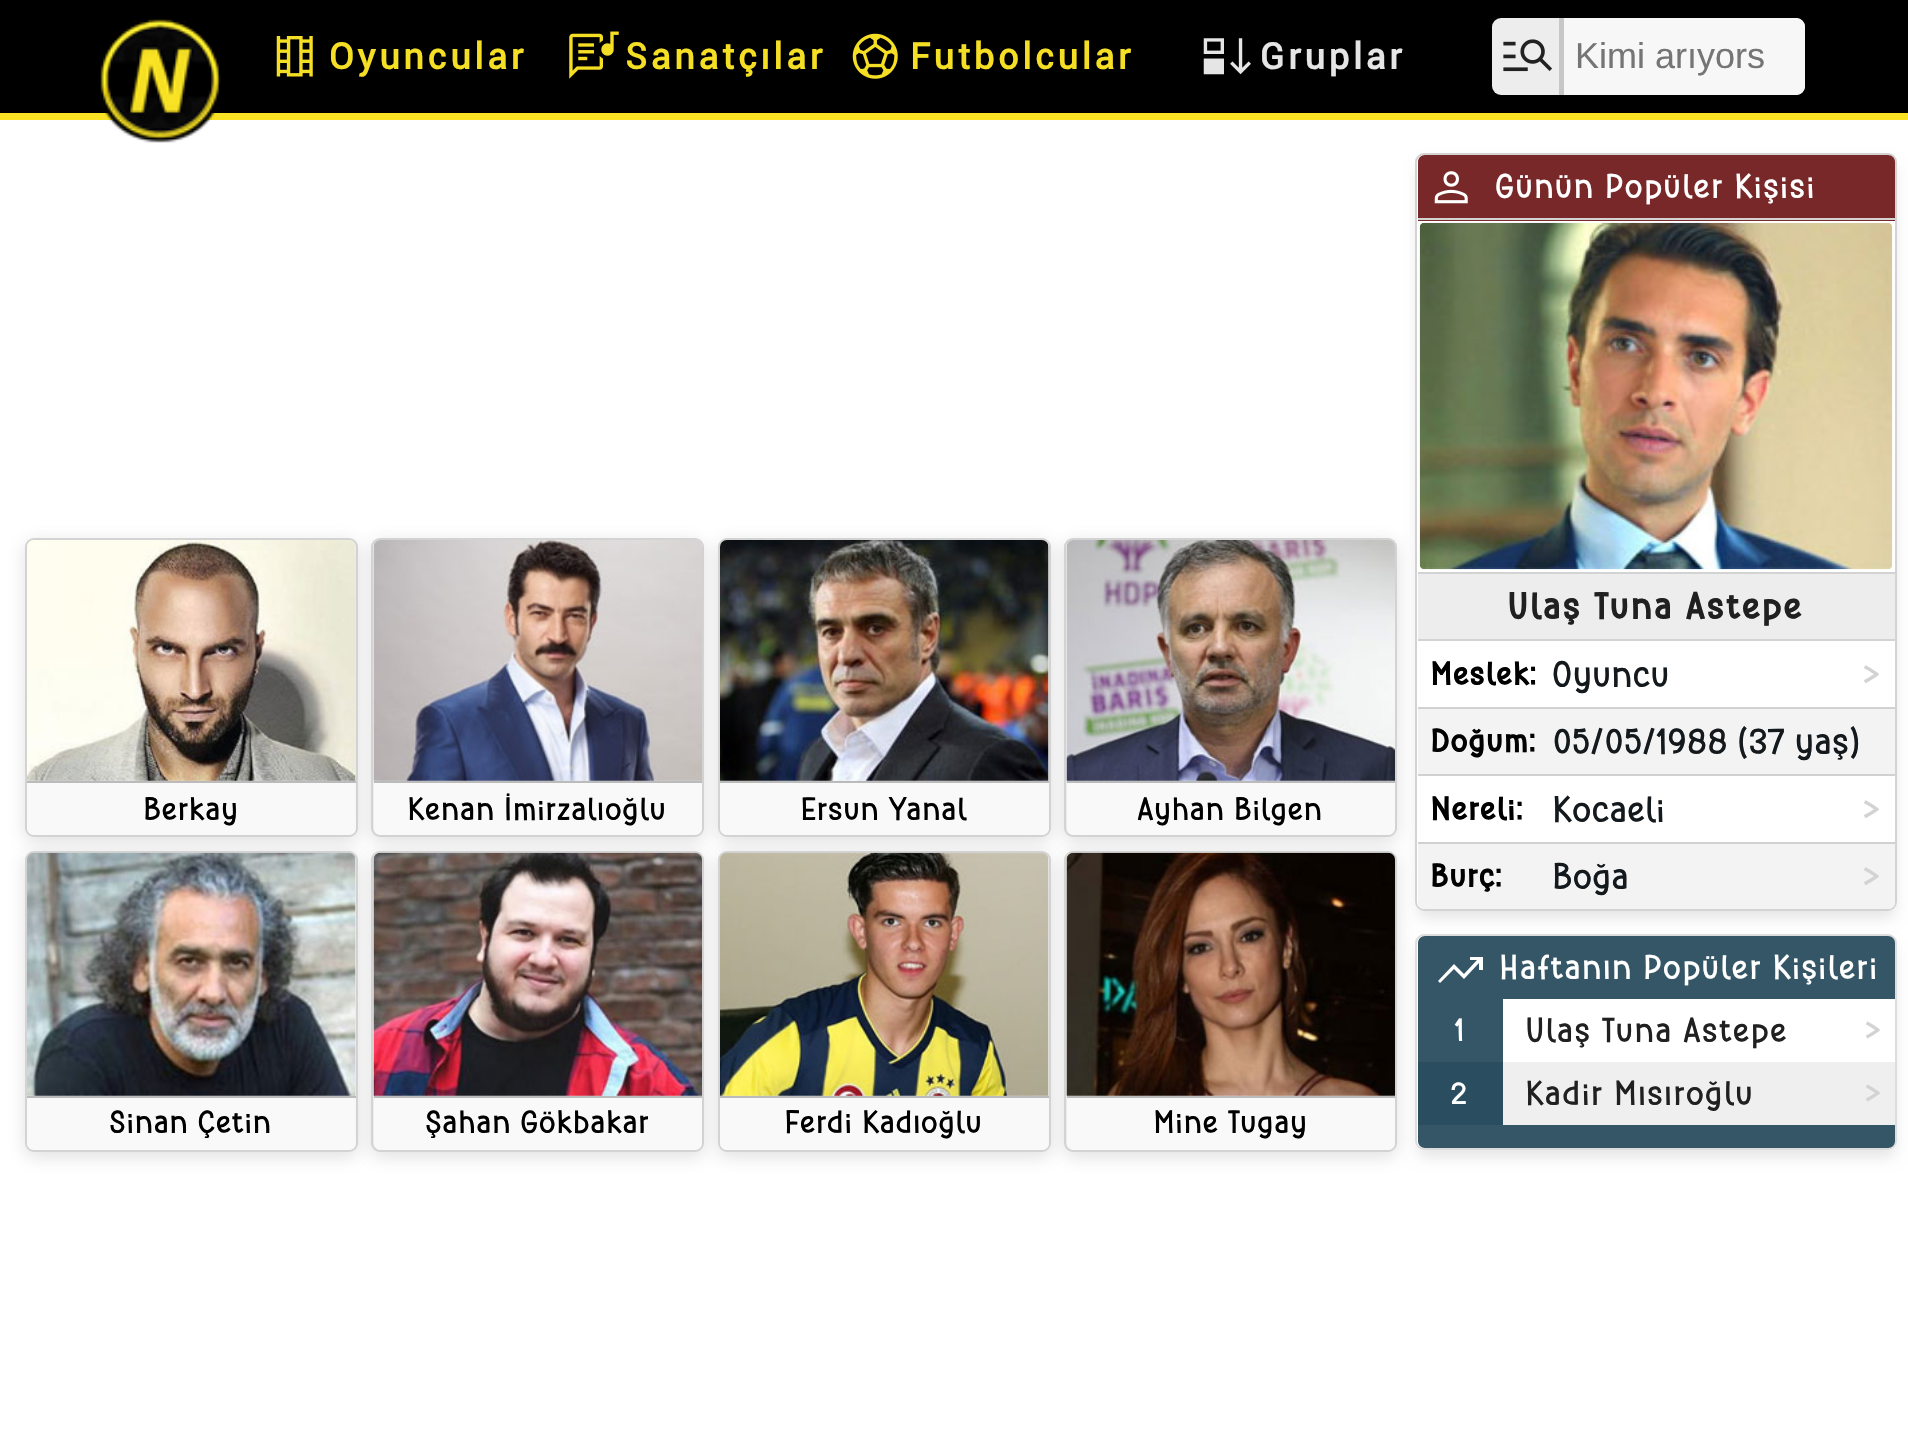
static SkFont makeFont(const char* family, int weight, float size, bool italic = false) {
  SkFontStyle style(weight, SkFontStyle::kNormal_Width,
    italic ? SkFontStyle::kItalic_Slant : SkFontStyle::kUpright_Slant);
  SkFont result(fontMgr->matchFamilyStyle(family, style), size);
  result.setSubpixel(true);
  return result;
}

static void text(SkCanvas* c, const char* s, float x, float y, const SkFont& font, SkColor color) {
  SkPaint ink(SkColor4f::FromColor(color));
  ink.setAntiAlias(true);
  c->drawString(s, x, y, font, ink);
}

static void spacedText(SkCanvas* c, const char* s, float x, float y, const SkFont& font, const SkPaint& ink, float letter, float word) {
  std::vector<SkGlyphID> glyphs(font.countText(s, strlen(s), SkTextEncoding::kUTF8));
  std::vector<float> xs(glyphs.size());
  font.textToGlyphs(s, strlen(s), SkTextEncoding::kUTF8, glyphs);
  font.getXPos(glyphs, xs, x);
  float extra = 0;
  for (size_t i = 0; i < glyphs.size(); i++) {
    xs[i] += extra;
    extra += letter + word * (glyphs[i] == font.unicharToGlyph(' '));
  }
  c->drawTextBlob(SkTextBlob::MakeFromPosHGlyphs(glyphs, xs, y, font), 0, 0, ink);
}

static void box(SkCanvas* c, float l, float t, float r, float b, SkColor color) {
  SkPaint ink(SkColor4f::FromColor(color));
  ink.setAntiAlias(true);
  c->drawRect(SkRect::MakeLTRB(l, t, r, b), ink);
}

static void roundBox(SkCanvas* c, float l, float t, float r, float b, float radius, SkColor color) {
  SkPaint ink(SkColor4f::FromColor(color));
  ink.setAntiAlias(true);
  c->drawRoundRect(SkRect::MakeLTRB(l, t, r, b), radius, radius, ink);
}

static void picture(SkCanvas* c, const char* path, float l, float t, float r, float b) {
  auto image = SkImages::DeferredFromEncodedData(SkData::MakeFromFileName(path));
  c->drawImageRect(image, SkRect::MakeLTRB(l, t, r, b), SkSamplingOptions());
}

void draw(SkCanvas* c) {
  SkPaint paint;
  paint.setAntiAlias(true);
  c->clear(0xffffffff);
  box(c, 0, 0, 1908, 113, 0xff010000);
  box(c, 0, 113, 1908, 120, 0xfff9e224);
  picture(c, "img_01.png", 100, 19, 221, 143);
  picture(c, "img_02.png", 276, 36, 313, 77);
  SkFont face1 = makeFont("Roboto", 700, 36);
  paint.setColor(0xfff5df24);
  spacedText(c, "Oyuncular", 329, 69, face1, paint, 3.75f, 0);
  picture(c, "img_03.png", 569, 31, 619, 79);
  spacedText(c, "Sanatçılar", 625, 69, face1, paint, 3.75f, 0);
  picture(c, "img_04.png", 852, 33, 898, 79);
  spacedText(c, "Futbolcular", 910, 69, face1, paint, 3.75f, 0);
  picture(c, "img_05.png", 1203, 38, 1251, 75);
  paint.setColor(0xffe5e5e5);
  spacedText(c, "Gruplar", 1260, 69, face1, paint, 3.75f, 0);
  roundBox(c, 1492, 18, 1805, 95, 9, 0xffededed);
  box(c, 1559, 18, 1564, 95, 0xffc7c7c7);
  picture(c, "img_06.png", 1503, 39, 1552, 72);
  paint.setColor(0xfff7f7f7);
  c->drawPath(SkPathBuilder().moveTo(1564, 18).lineTo(1796, 18).cubicTo(1801, 18, 1805, 22, 1805, 27).lineTo(1805, 86).cubicTo(1805, 91, 1801, 95, 1796, 95).lineTo(1564, 95).close().detach(), paint);
  SkFont face2 = makeFont("Liberation Sans", 400, 36);
  text(c, "Kimi arıyors", 1575, 68, face2, 0xff757575);
  paint.setColor(0x33636363);
  paint.setMaskFilter(SkMaskFilter::MakeBlur(kNormal_SkBlurStyle, 9));
  c->drawRoundRect(SkRect::MakeLTRB(25, 542, 358, 842), 9, 9, paint);
  paint.setMaskFilter(nullptr);
  paint.setStyle(SkPaint::kStroke_Style);
  paint.setStrokeWidth(2);
  paint.setColor(0xffd3d3d3);
  c->drawRoundRect(SkRect::MakeLTRB(26, 539, 357, 836), 8, 8, paint);
  picture(c, "img_07.png", 27, 540, 356, 781);
  paint.setStyle(SkPaint::kFill_Style);
  paint.setColor(0xfff9f9f9);
  c->drawPath(SkPathBuilder().moveTo(27, 781).lineTo(356, 781).lineTo(356, 828).cubicTo(356, 832, 353, 835, 349, 835).lineTo(34, 835).cubicTo(30, 835, 27, 832, 27, 828).close().detach(), paint);
  box(c, 27, 781, 356, 783, 0xffbbbbbb);
  SkFont face3 = makeFont("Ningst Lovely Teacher", 400, 31.5f);
  paint.setColor(0xff000000);
  spacedText(c, "Berkay", 144, 820, face3, paint, 1.6f, 0);
  paint.setColor(0x33636363);
  paint.setMaskFilter(SkMaskFilter::MakeBlur(kNormal_SkBlurStyle, 9));
  c->drawRoundRect(SkRect::MakeLTRB(371, 542, 704, 842), 9, 9, paint);
  paint.setMaskFilter(nullptr);
  paint.setStyle(SkPaint::kStroke_Style);
  paint.setColor(0xffd3d3d3);
  c->drawRoundRect(SkRect::MakeLTRB(372, 539, 703, 836), 8, 8, paint);
  picture(c, "img_08.png", 373, 540, 702, 781);
  paint.setStyle(SkPaint::kFill_Style);
  paint.setColor(0xfff9f9f9);
  c->drawPath(SkPathBuilder().moveTo(374, 781).lineTo(702, 781).lineTo(702, 828).cubicTo(702, 832, 699, 835, 695, 835).lineTo(381, 835).cubicTo(377, 835, 374, 832, 374, 828).close().detach(), paint);
  box(c, 374, 781, 702, 783, 0xffbbbbbb);
  paint.setColor(0xff000000);
  spacedText(c, "Kenan İmirzalıoğlu", 408, 820, face3, paint, 1.6f, 0);
  paint.setColor(0x33636363);
  paint.setMaskFilter(SkMaskFilter::MakeBlur(kNormal_SkBlurStyle, 9));
  c->drawRoundRect(SkRect::MakeLTRB(718, 542, 1051, 842), 9, 9, paint);
  paint.setMaskFilter(nullptr);
  paint.setStyle(SkPaint::kStroke_Style);
  paint.setColor(0xffd3d3d3);
  c->drawRoundRect(SkRect::MakeLTRB(719, 539, 1050, 836), 8, 8, paint);
  picture(c, "img_09.png", 720, 540, 1049, 781);
  paint.setStyle(SkPaint::kFill_Style);
  paint.setColor(0xfff9f9f9);
  c->drawPath(SkPathBuilder().moveTo(720, 781).lineTo(1049, 781).lineTo(1049, 828).cubicTo(1049, 832, 1046, 835, 1042, 835).lineTo(727, 835).cubicTo(723, 835, 720, 832, 720, 828).close().detach(), paint);
  box(c, 720, 781, 1049, 783, 0xffbbbbbb);
  paint.setColor(0xff000000);
  spacedText(c, "Ersun Yanal", 801, 820, face3, paint, 1.6f, 0);
  paint.setColor(0x33636363);
  paint.setMaskFilter(SkMaskFilter::MakeBlur(kNormal_SkBlurStyle, 9));
  c->drawRoundRect(SkRect::MakeLTRB(1064, 542, 1397, 842), 9, 9, paint);
  paint.setMaskFilter(nullptr);
  paint.setStyle(SkPaint::kStroke_Style);
  paint.setColor(0xffd3d3d3);
  c->drawRoundRect(SkRect::MakeLTRB(1065, 539, 1396, 836), 8, 8, paint);
  picture(c, "img_10.png", 1066, 540, 1395, 781);
  paint.setStyle(SkPaint::kFill_Style);
  paint.setColor(0xfff9f9f9);
  c->drawPath(SkPathBuilder().moveTo(1067, 781).lineTo(1395, 781).lineTo(1395, 828).cubicTo(1395, 832, 1392, 835, 1388, 835).lineTo(1074, 835).cubicTo(1070, 835, 1067, 832, 1067, 828).close().detach(), paint);
  box(c, 1067, 781, 1395, 783, 0xffbbbbbb);
  paint.setColor(0xff000000);
  spacedText(c, "Ayhan Bilgen", 1138, 820, face3, paint, 1.6f, 0);
  paint.setColor(0x33636363);
  paint.setMaskFilter(SkMaskFilter::MakeBlur(kNormal_SkBlurStyle, 9));
  c->drawRoundRect(SkRect::MakeLTRB(25, 855, 358, 1157), 9, 9, paint);
  paint.setMaskFilter(nullptr);
  paint.setStyle(SkPaint::kStroke_Style);
  paint.setColor(0xffd3d3d3);
  c->drawRoundRect(SkRect::MakeLTRB(26, 852, 357, 1151), 8, 8, paint);
  picture(c, "img_11.png", 27, 852, 356, 1096);
  paint.setStyle(SkPaint::kFill_Style);
  paint.setColor(0xfff9f9f9);
  c->drawPath(SkPathBuilder().moveTo(27, 1096).lineTo(356, 1096).lineTo(356, 1143).cubicTo(356, 1147, 353, 1150, 349, 1150).lineTo(34, 1150).cubicTo(30, 1150, 27, 1147, 27, 1143).close().detach(), paint);
  box(c, 27, 1096, 356, 1098, 0xffbbbbbb);
  paint.setColor(0xff000000);
  spacedText(c, "Sinan Çetin", 110, 1133, face3, paint, 1.6f, 0);
  paint.setColor(0x33636363);
  paint.setMaskFilter(SkMaskFilter::MakeBlur(kNormal_SkBlurStyle, 9));
  c->drawRoundRect(SkRect::MakeLTRB(371, 855, 704, 1157), 9, 9, paint);
  paint.setMaskFilter(nullptr);
  paint.setStyle(SkPaint::kStroke_Style);
  paint.setColor(0xffd3d3d3);
  c->drawRoundRect(SkRect::MakeLTRB(372, 852, 703, 1151), 8, 8, paint);
  picture(c, "img_12.png", 373, 852, 702, 1096);
  paint.setStyle(SkPaint::kFill_Style);
  paint.setColor(0xfff9f9f9);
  c->drawPath(SkPathBuilder().moveTo(374, 1096).lineTo(702, 1096).lineTo(702, 1143).cubicTo(702, 1147, 699, 1150, 695, 1150).lineTo(381, 1150).cubicTo(377, 1150, 374, 1147, 374, 1143).close().detach(), paint);
  box(c, 374, 1096, 702, 1098, 0xffbbbbbb);
  paint.setColor(0xff000000);
  spacedText(c, "Şahan Gökbakar", 426, 1133, face3, paint, 1.6f, 0);
  paint.setColor(0x33636363);
  paint.setMaskFilter(SkMaskFilter::MakeBlur(kNormal_SkBlurStyle, 9));
  c->drawRoundRect(SkRect::MakeLTRB(718, 855, 1051, 1157), 9, 9, paint);
  paint.setMaskFilter(nullptr);
  paint.setStyle(SkPaint::kStroke_Style);
  paint.setColor(0xffd3d3d3);
  c->drawRoundRect(SkRect::MakeLTRB(719, 852, 1050, 1151), 8, 8, paint);
  picture(c, "img_13.png", 720, 852, 1049, 1096);
  paint.setStyle(SkPaint::kFill_Style);
  paint.setColor(0xfff9f9f9);
  c->drawPath(SkPathBuilder().moveTo(720, 1096).lineTo(1049, 1096).lineTo(1049, 1143).cubicTo(1049, 1147, 1046, 1150, 1042, 1150).lineTo(727, 1150).cubicTo(723, 1150, 720, 1147, 720, 1143).close().detach(), paint);
  box(c, 720, 1096, 1049, 1098, 0xffbbbbbb);
  paint.setColor(0xff000000);
  spacedText(c, "Ferdi Kadıoğlu", 785, 1133, face3, paint, 1.6f, 0);
  paint.setColor(0x33636363);
  paint.setMaskFilter(SkMaskFilter::MakeBlur(kNormal_SkBlurStyle, 9));
  c->drawRoundRect(SkRect::MakeLTRB(1064, 855, 1397, 1157), 9, 9, paint);
  paint.setMaskFilter(nullptr);
  paint.setStyle(SkPaint::kStroke_Style);
  paint.setColor(0xffd3d3d3);
  c->drawRoundRect(SkRect::MakeLTRB(1065, 852, 1396, 1151), 8, 8, paint);
  picture(c, "img_14.png", 1066, 852, 1395, 1096);
  paint.setStyle(SkPaint::kFill_Style);
  paint.setColor(0xfff9f9f9);
  c->drawPath(SkPathBuilder().moveTo(1067, 1096).lineTo(1395, 1096).lineTo(1395, 1143).cubicTo(1395, 1147, 1392, 1150, 1388, 1150).lineTo(1074, 1150).cubicTo(1070, 1150, 1067, 1147, 1067, 1143).close().detach(), paint);
  box(c, 1067, 1096, 1395, 1098, 0xffbbbbbb);
  paint.setColor(0xff000000);
  spacedText(c, "Mine Tugay", 1154, 1133, face3, paint, 1.6f, 0);
  c->save();
  c->clipPath(SkPathBuilder(SkPathFillType::kEvenOdd).moveTo(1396, 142).lineTo(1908, 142).lineTo(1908, 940).lineTo(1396, 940).close().moveTo(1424, 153).lineTo(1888, 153).cubicTo(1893, 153, 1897, 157, 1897, 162).lineTo(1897, 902).cubicTo(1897, 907, 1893, 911, 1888, 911).lineTo(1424, 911).cubicTo(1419, 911, 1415, 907, 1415, 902).lineTo(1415, 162).cubicTo(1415, 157, 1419, 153, 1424, 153).close().detach(), true);
  paint.setColor(0x1a000000);
  paint.setMaskFilter(SkMaskFilter::MakeBlur(kNormal_SkBlurStyle, 7));
  c->drawRoundRect(SkRect::MakeLTRB(1418, 164, 1895, 918), 7, 7, paint);
  paint.setMaskFilter(nullptr);
  c->restore();
  paint.setStyle(SkPaint::kStroke_Style);
  paint.setColor(0xffd3d3d3);
  c->drawRoundRect(SkRect::MakeLTRB(1416, 154, 1896, 910), 8, 8, paint);
  paint.setStyle(SkPaint::kFill_Style);
  paint.setColor(0xff782828);
  c->drawPath(SkPathBuilder().moveTo(1425, 155).lineTo(1888, 155).cubicTo(1892, 155, 1895, 158, 1895, 162).lineTo(1895, 221).lineTo(1418, 221).lineTo(1418, 162).cubicTo(1418, 158, 1421, 155, 1425, 155).close().detach(), paint);
  box(c, 1418, 218, 1895, 220, 0xffd3d3d3);
  picture(c, "img_15.png", 1434, 171, 1468, 204);
  SkFont face4 = makeFont("Ningst Lovely Teacher", 400, 33.75f);
  paint.setColor(0xffffffff);
  spacedText(c, "Günün Popüler Kişisi", 1496, 198, face4, paint, 2.25f, 0);
  picture(c, "img_16.png", 1419, 222, 1893, 570);
  box(c, 1418, 574, 1895, 639, 0xffededed);
  box(c, 1418, 572, 1895, 574, 0xffd3d3d3);
  box(c, 1418, 639, 1895, 641, 0xffd3d3d3);
  SkFont face5 = makeFont("Ningst Lovely Teacher", 700, 36);
  paint.setColor(0xff202020);
  spacedText(c, "Ulaş Tuna Astepe", 1508, 619, face5, paint, 3.4f, 0);
  box(c, 1418, 707, 1895, 709, 0xffd1d1d1);
  SkFont face6 = makeFont("Ningst Lovely Teacher", 700, 31.5f);
  paint.setColor(0xff000000);
  spacedText(c, "Meslek:", 1431, 685, face6, paint, 2.25f, 0);
  SkFont face7 = makeFont("Ningst Lovely Teacher", 400, 36);
  paint.setColor(0xff13191c);
  spacedText(c, "Oyuncu", 1553, 687, face7, paint, 1.4f, 0);
  paint.setColor(0xffd3d3d3);
  spacedText(c, ">", 1863, 687, face7, paint, 1.4f, 0);
  box(c, 1418, 709, 1895, 774, 0xfff3f3f3);
  box(c, 1418, 774, 1895, 776, 0xffd1d1d1);
  paint.setColor(0xff000000);
  spacedText(c, "Doğum:", 1431, 752, face6, paint, 2.25f, 0);
  paint.setColor(0xff13191c);
  spacedText(c, "05/05/1988 (37 yaş)", 1553, 754, face7, paint, 1.4f, 0);
  box(c, 1418, 842, 1895, 844, 0xffd1d1d1);
  paint.setColor(0xff000000);
  spacedText(c, "Nereli:", 1431, 820, face6, paint, 2.25f, 0);
  paint.setColor(0xff13191c);
  spacedText(c, "Kocaeli", 1553, 822, face7, paint, 1.4f, 0);
  paint.setColor(0xffd3d3d3);
  spacedText(c, ">", 1863, 822, face7, paint, 1.4f, 0);
  paint.setColor(0xfff3f3f3);
  c->drawPath(SkPathBuilder().moveTo(1418, 844).lineTo(1895, 844).lineTo(1895, 902).cubicTo(1895, 906, 1892, 909, 1888, 909).lineTo(1425, 909).cubicTo(1421, 909, 1418, 906, 1418, 902).close().detach(), paint);
  paint.setColor(0xff000000);
  spacedText(c, "Burç:", 1431, 887, face6, paint, 2.25f, 0);
  paint.setColor(0xff13191c);
  spacedText(c, "Boğa", 1553, 889, face7, paint, 1.4f, 0);
  paint.setColor(0xffd3d3d3);
  spacedText(c, ">", 1863, 889, face7, paint, 1.4f, 0);
  c->save();
  c->clipPath(SkPathBuilder(SkPathFillType::kEvenOdd).moveTo(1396, 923).lineTo(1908, 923).lineTo(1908, 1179).lineTo(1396, 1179).close().moveTo(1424, 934).lineTo(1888, 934).cubicTo(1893, 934, 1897, 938, 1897, 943).lineTo(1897, 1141).cubicTo(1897, 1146, 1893, 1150, 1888, 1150).lineTo(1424, 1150).cubicTo(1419, 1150, 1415, 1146, 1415, 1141).lineTo(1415, 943).cubicTo(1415, 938, 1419, 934, 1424, 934).close().detach(), true);
  paint.setColor(0x1a000000);
  paint.setMaskFilter(SkMaskFilter::MakeBlur(kNormal_SkBlurStyle, 7));
  c->drawRoundRect(SkRect::MakeLTRB(1418, 945, 1895, 1157), 7, 7, paint);
  paint.setMaskFilter(nullptr);
  c->restore();
  paint.setStyle(SkPaint::kStroke_Style);
  paint.setColor(0xffdddddd);
  c->drawRoundRect(SkRect::MakeLTRB(1416, 935, 1896, 1149), 8, 8, paint);
  paint.setStyle(SkPaint::kFill_Style);
  paint.setColor(0xff355666);
  c->drawPath(SkPathBuilder().moveTo(1425, 936).lineTo(1888, 936).cubicTo(1892, 936, 1895, 939, 1895, 943).lineTo(1895, 999).lineTo(1418, 999).lineTo(1418, 943).cubicTo(1418, 939, 1421, 936, 1425, 936).close().detach(), paint);
  paint.setColor(0xffffffff);
  c->drawPath(SkPathBuilder().moveTo(1440, 983).lineTo(1438, 981).lineTo(1454, 964).lineTo(1464, 974).lineTo(1477, 960).lineTo(1470, 960).lineTo(1470, 957).lineTo(1483, 957).lineTo(1483, 970).lineTo(1479, 970).lineTo(1479, 963).lineTo(1464, 979).lineTo(1454, 969).close().detach(), paint);
  spacedText(c, "Haftanın Popüler Kişileri", 1500, 979, face4, paint, 2.25f, 0);
  box(c, 1418, 999, 1503, 1062, 0xff355666);
  spacedText(c, "1", 1455, 1041, face3, paint, 2.25f, 0);
  paint.setColor(0xff202020);
  spacedText(c, "Ulaş Tuna Astepe", 1526, 1042, face4, paint, 2.25f, 0);
  paint.setColor(0xffd3d3d3);
  spacedText(c, ">", 1865, 1042, face4, paint, 2.25f, 0);
  box(c, 1503, 1062, 1895, 1125, 0xffefefef);
  box(c, 1418, 1062, 1503, 1125, 0xff2a4e60);
  paint.setColor(0xffffffff);
  spacedText(c, "2", 1451, 1104, face3, paint, 2.25f, 0);
  paint.setColor(0xff202020);
  spacedText(c, "Kadir Mısıroğlu", 1526, 1105, face4, paint, 2.25f, 0);
  paint.setColor(0xffd3d3d3);
  spacedText(c, ">", 1865, 1105, face4, paint, 2.25f, 0);
  paint.setColor(0xff355666);
  c->drawPath(SkPathBuilder().moveTo(1418, 1125).lineTo(1895, 1125).lineTo(1895, 1141).cubicTo(1895, 1145, 1892, 1148, 1888, 1148).lineTo(1425, 1148).cubicTo(1421, 1148, 1418, 1145, 1418, 1141).close().detach(), paint);
}
